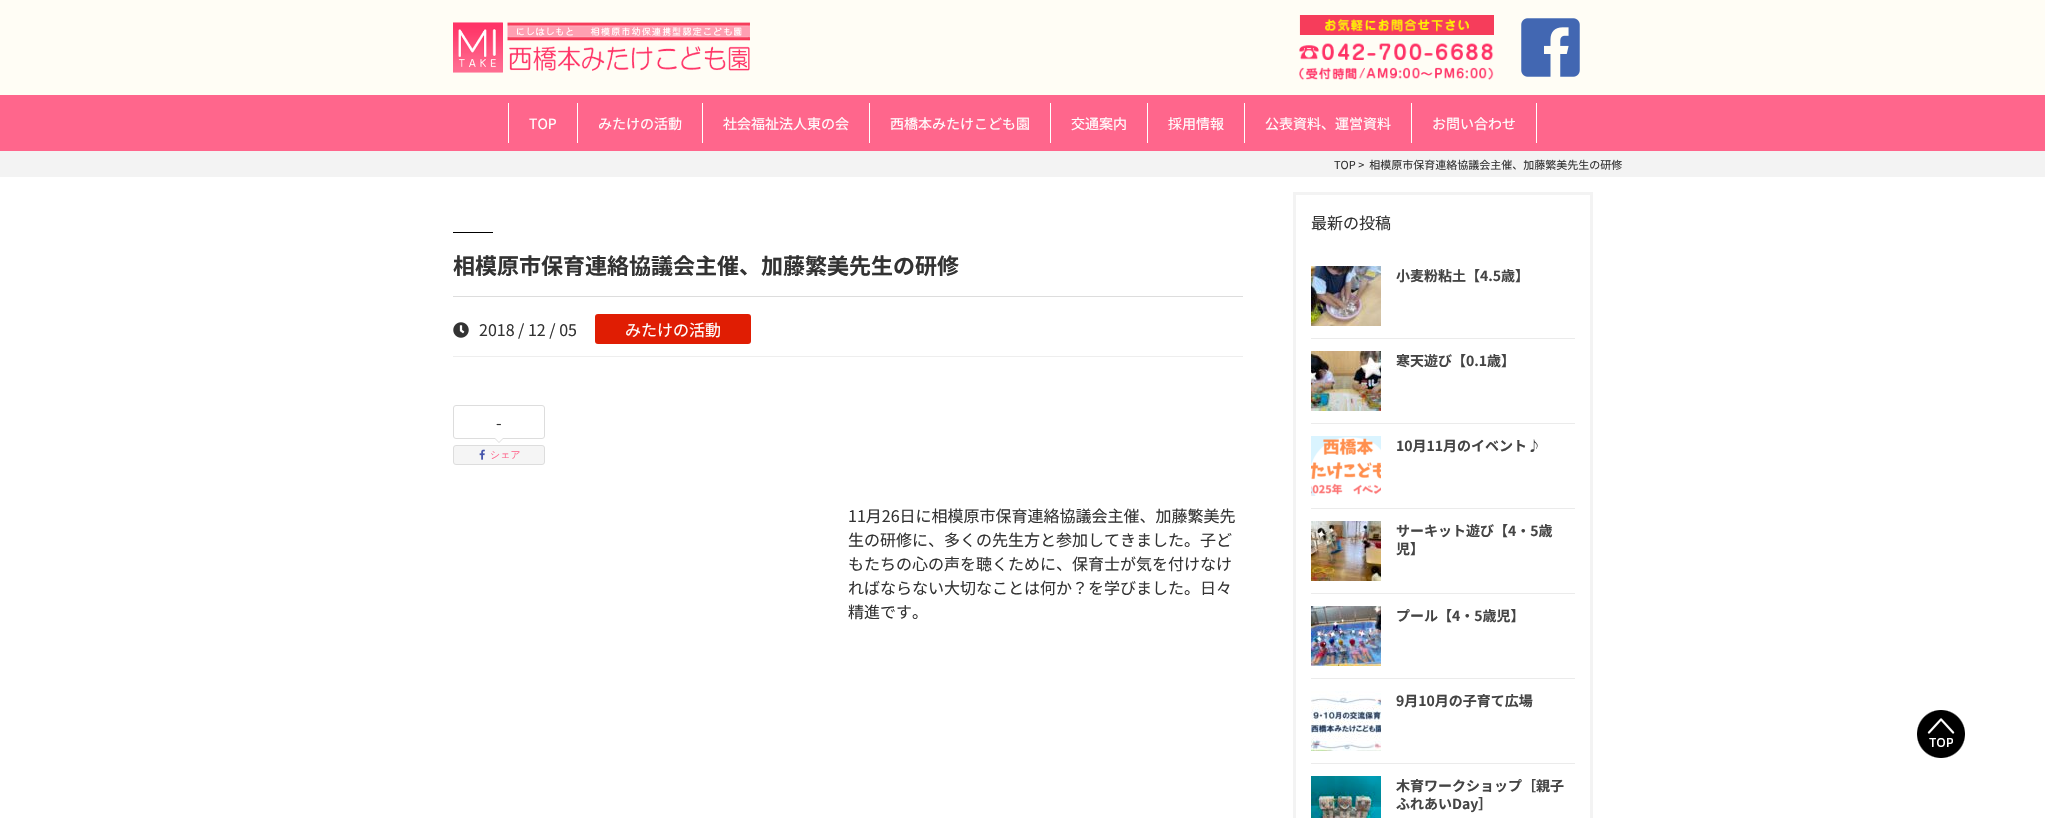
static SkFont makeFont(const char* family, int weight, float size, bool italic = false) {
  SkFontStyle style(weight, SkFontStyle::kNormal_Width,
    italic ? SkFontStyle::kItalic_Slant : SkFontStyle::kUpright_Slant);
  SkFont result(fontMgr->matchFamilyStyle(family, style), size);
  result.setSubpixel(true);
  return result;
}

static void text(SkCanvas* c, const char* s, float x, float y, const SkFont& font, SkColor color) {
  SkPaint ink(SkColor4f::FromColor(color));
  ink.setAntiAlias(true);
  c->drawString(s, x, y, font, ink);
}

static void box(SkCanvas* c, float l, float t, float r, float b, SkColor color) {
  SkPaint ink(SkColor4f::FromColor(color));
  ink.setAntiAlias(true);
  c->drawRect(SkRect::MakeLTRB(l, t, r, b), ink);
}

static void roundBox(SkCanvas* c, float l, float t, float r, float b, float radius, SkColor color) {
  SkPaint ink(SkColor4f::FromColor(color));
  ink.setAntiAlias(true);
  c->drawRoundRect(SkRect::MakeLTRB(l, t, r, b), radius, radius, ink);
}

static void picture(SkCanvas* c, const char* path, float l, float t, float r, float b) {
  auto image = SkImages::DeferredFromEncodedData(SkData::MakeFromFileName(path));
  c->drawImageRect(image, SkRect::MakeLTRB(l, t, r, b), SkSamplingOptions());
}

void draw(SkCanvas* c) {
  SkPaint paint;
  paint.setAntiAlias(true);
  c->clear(0xffffffff);
  box(c, 0, 0, 2045, 95, 0xfffffdf5);
  picture(c, "img_01.png", 453, 22, 750, 73);
  picture(c, "img_02.png", 1299, 15, 1494, 80);
  picture(c, "img_03.png", 1521, 18, 1580, 77);
  box(c, 0, 95, 2045, 151, 0xffff668c);
  box(c, 508, 103, 509, 143, 0xffffffff);
  SkFont face1 = makeFont("Noto Sans JP", 400, 14);
  text(c, "TOP", 529, 129, face1, 0xffffffff);
  box(c, 577, 103, 578, 143, 0xffffffff);
  text(c, "みたけの活動", 598, 129, face1, 0xffffffff);
  box(c, 702, 103, 703, 143, 0xffffffff);
  text(c, "社会福祉法人東の会", 723, 129, face1, 0xffffffff);
  box(c, 869, 103, 870, 143, 0xffffffff);
  text(c, "西橋本みたけこども園", 890, 129, face1, 0xffffffff);
  box(c, 1050, 103, 1051, 143, 0xffffffff);
  text(c, "交通案内", 1071, 129, face1, 0xffffffff);
  box(c, 1147, 103, 1148, 143, 0xffffffff);
  text(c, "採用情報", 1168, 129, face1, 0xffffffff);
  box(c, 1244, 103, 1245, 143, 0xffffffff);
  text(c, "公表資料、運営資料", 1265, 129, face1, 0xffffffff);
  box(c, 1536, 103, 1537, 143, 0xffffffff);
  box(c, 1411, 103, 1412, 143, 0xffffffff);
  text(c, "お問い合わせ", 1432, 129, face1, 0xffffffff);
  box(c, 0, 151, 2045, 177, 0xfff3f3f3);
  SkFont face2 = makeFont("Noto Sans JP", 400, 11);
  text(c, "TOP >  相模原市保育連絡協議会主催、加藤繁美先生の研修", 1334, 169, face2, 0xff333333);
  box(c, 453, 296, 1243, 297, 0xffdddddd);
  box(c, 453, 232, 493, 233, 0xff000000);
  SkFont face3 = makeFont("Noto Sans JP", 700, 22);
  text(c, "相模原市保育連絡協議会主催、加藤繁美先生の研修", 453, 274, face3, 0xff333333);
  box(c, 453, 356, 1243, 357, 0xffeeeeee);
  picture(c, "img_04.png", 453, 322, 469, 338);
  SkFont face4 = makeFont("Noto Sans JP", 400, 16);
  text(c, "2018 / 12 / 05", 479, 336, face4, 0xff333333);
  roundBox(c, 595, 314, 751, 344, 3, 0xffe01d03);
  text(c, "みたけの活動", 625, 336, face4, 0xffffffff);
  paint.setStyle(SkPaint::kStroke_Style);
  paint.setStrokeWidth(1);
  paint.setColor(0xffdddddd);
  c->drawRoundRect(SkRect::MakeLTRB(453.5f, 405.5f, 544.5f, 438.5f), 2.5f, 2.5f, paint);
  text(c, "-", 496, 429, face4, 0xff333333);
  paint.setStyle(SkPaint::kFill_Style);
  c->drawPath(SkPathBuilder().moveTo(494, 438).lineTo(504, 438).lineTo(499, 443).close().detach(), paint);
  paint.setColor(0xffffffff);
  c->drawPath(SkPathBuilder().moveTo(494, 437).lineTo(504, 437).lineTo(499, 442).close().detach(), paint);
  paint.setColor(0xfff5f5f5);
  c->drawRoundRect(SkRect::MakeLTRB(453.5f, 445.5f, 544.5f, 464.5f), 2.5f, 2.5f, paint);
  paint.setStyle(SkPaint::kStroke_Style);
  paint.setColor(0xffdddddd);
  c->drawRoundRect(SkRect::MakeLTRB(453.5f, 445.5f, 544.5f, 464.5f), 2.5f, 2.5f, paint);
  picture(c, "img_05.png", 479, 449, 485, 460);
  SkFont face5 = makeFont("WenQuanYi Zen Hei", 500, 10);
  text(c, "シェア", 490, 458, face5, 0xffff668c);
  text(c, "11月26日に相模原市保育連絡協議会主催、加藤繁美先", 848, 522, face4, 0xff333333);
  text(c, "生の研修に、多くの先生方と参加してきました。子ど", 848, 546, face4, 0xff333333);
  text(c, "もたちの心の声を聴くために、保育士が気を付けなけ", 848, 570, face4, 0xff333333);
  text(c, "ればならない大切なことは何か？を学びました。日々", 848, 594, face4, 0xff333333);
  text(c, "精進です。", 848, 618, face4, 0xff333333);
  paint.setStrokeWidth(3);
  paint.setColor(0xfff3f3f3);
  c->drawRect(SkRect::MakeLTRB(1294.5f, 193.5f, 1591.5f, 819.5f), paint);
  text(c, "最新の投稿", 1311, 229, face4, 0xff333333);
  box(c, 1311, 338, 1575, 339, 0xffebebeb);
  picture(c, "img_06.png", 1311, 266, 1381, 326);
  SkFont face6 = makeFont("Noto Sans JP", 700, 14);
  text(c, "小麦粉粘土【4.5歳】", 1396, 281, face6, 0xff444444);
  box(c, 1311, 423, 1575, 424, 0xffebebeb);
  picture(c, "img_07.png", 1311, 351, 1381, 411);
  text(c, "寒天遊び【0.1歳】", 1396, 366, face6, 0xff444444);
  box(c, 1311, 508, 1575, 509, 0xffebebeb);
  picture(c, "img_08.png", 1311, 436, 1381, 496);
  text(c, "10月11月のイベント♪", 1396, 451, face6, 0xff444444);
  box(c, 1311, 593, 1575, 594, 0xffebebeb);
  picture(c, "img_09.png", 1311, 521, 1381, 581);
  text(c, "サーキット遊び【4・5歳", 1396, 536, face6, 0xff444444);
  text(c, "児】", 1396, 554, face6, 0xff444444);
  box(c, 1311, 678, 1575, 679, 0xffebebeb);
  picture(c, "img_10.png", 1311, 606, 1381, 666);
  text(c, "プール【4・5歳児】", 1396, 621, face6, 0xff444444);
  box(c, 1311, 763, 1575, 764, 0xffebebeb);
  picture(c, "img_11.png", 1311, 691, 1381, 751);
  text(c, "9月10月の子育て広場", 1396, 706, face6, 0xff444444);
  picture(c, "img_12.png", 1311, 776, 1381, 818);
  text(c, "木育ワークショップ［親子", 1396, 791, face6, 0xff444444);
  text(c, "ふれあいDay］", 1396, 809, face6, 0xff444444);
  picture(c, "img_13.png", 1917, 710, 1965, 758);
}
